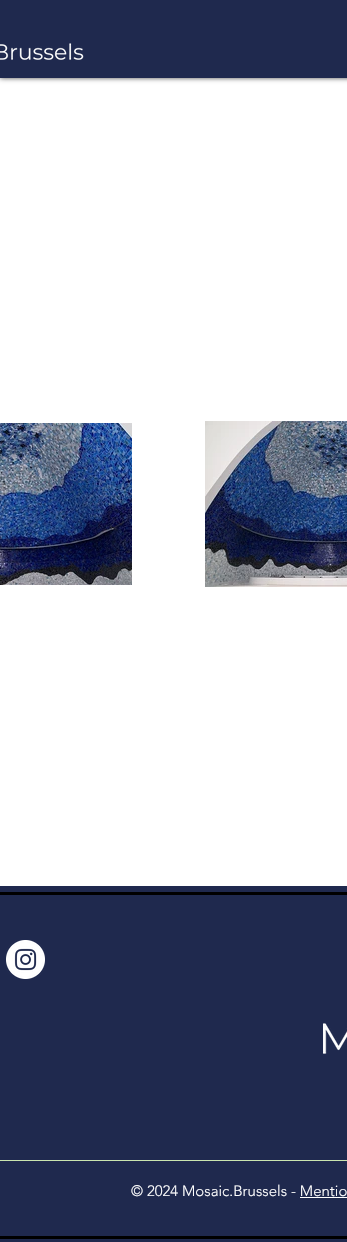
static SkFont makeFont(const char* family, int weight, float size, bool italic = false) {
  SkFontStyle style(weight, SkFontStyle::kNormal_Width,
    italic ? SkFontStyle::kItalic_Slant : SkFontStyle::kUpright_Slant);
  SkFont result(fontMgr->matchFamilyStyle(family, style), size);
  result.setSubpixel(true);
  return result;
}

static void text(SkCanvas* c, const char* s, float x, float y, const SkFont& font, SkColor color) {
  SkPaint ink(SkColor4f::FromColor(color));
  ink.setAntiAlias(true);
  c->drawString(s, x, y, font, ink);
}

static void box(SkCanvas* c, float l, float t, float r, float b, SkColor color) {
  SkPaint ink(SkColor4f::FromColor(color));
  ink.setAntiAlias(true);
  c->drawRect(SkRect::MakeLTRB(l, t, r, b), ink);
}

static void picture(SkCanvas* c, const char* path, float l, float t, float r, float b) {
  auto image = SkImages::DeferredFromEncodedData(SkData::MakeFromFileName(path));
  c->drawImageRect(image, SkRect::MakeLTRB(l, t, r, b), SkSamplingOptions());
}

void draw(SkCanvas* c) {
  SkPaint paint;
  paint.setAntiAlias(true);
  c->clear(0xffffffff);
  paint.setColor(0xb3000000);
  paint.setMaskFilter(SkMaskFilter::MakeBlur(kNormal_SkBlurStyle, 2.5f));
  c->drawRect(SkRect::MakeLTRB(0, 0, 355, 78), paint);
  paint.setMaskFilter(nullptr);
  box(c, 0, 0, 347, 78, 0xff1f294e);
  picture(c, "img_01.png", 0, 43, 84, 60);
  picture(c, "img_02.png", 0, 423, 132, 585);
  picture(c, "img_03.png", 205, 421, 347, 587);
  box(c, 0, 886, 347, 1242, 0xff1f294e);
  box(c, 0, 892, 347, 895, 0xff000000);
  box(c, 0, 1236, 347, 1239, 0xff000000);
  picture(c, "img_04.png", 6, 940, 45, 979);
  picture(c, "img_05.png", 323, 1023, 347, 1054);
  box(c, 0, 1160, 347, 1161, 0xffcae5af);
  SkFont face1 = makeFont("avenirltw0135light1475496", 300, 15);
  text(c, "© 2024 Mosaic.Brussels - Mentio", 131, 1196, face1, 0xffffffff);
  box(c, 300, 1197, 347, 1198, 0xffffffff);
}
